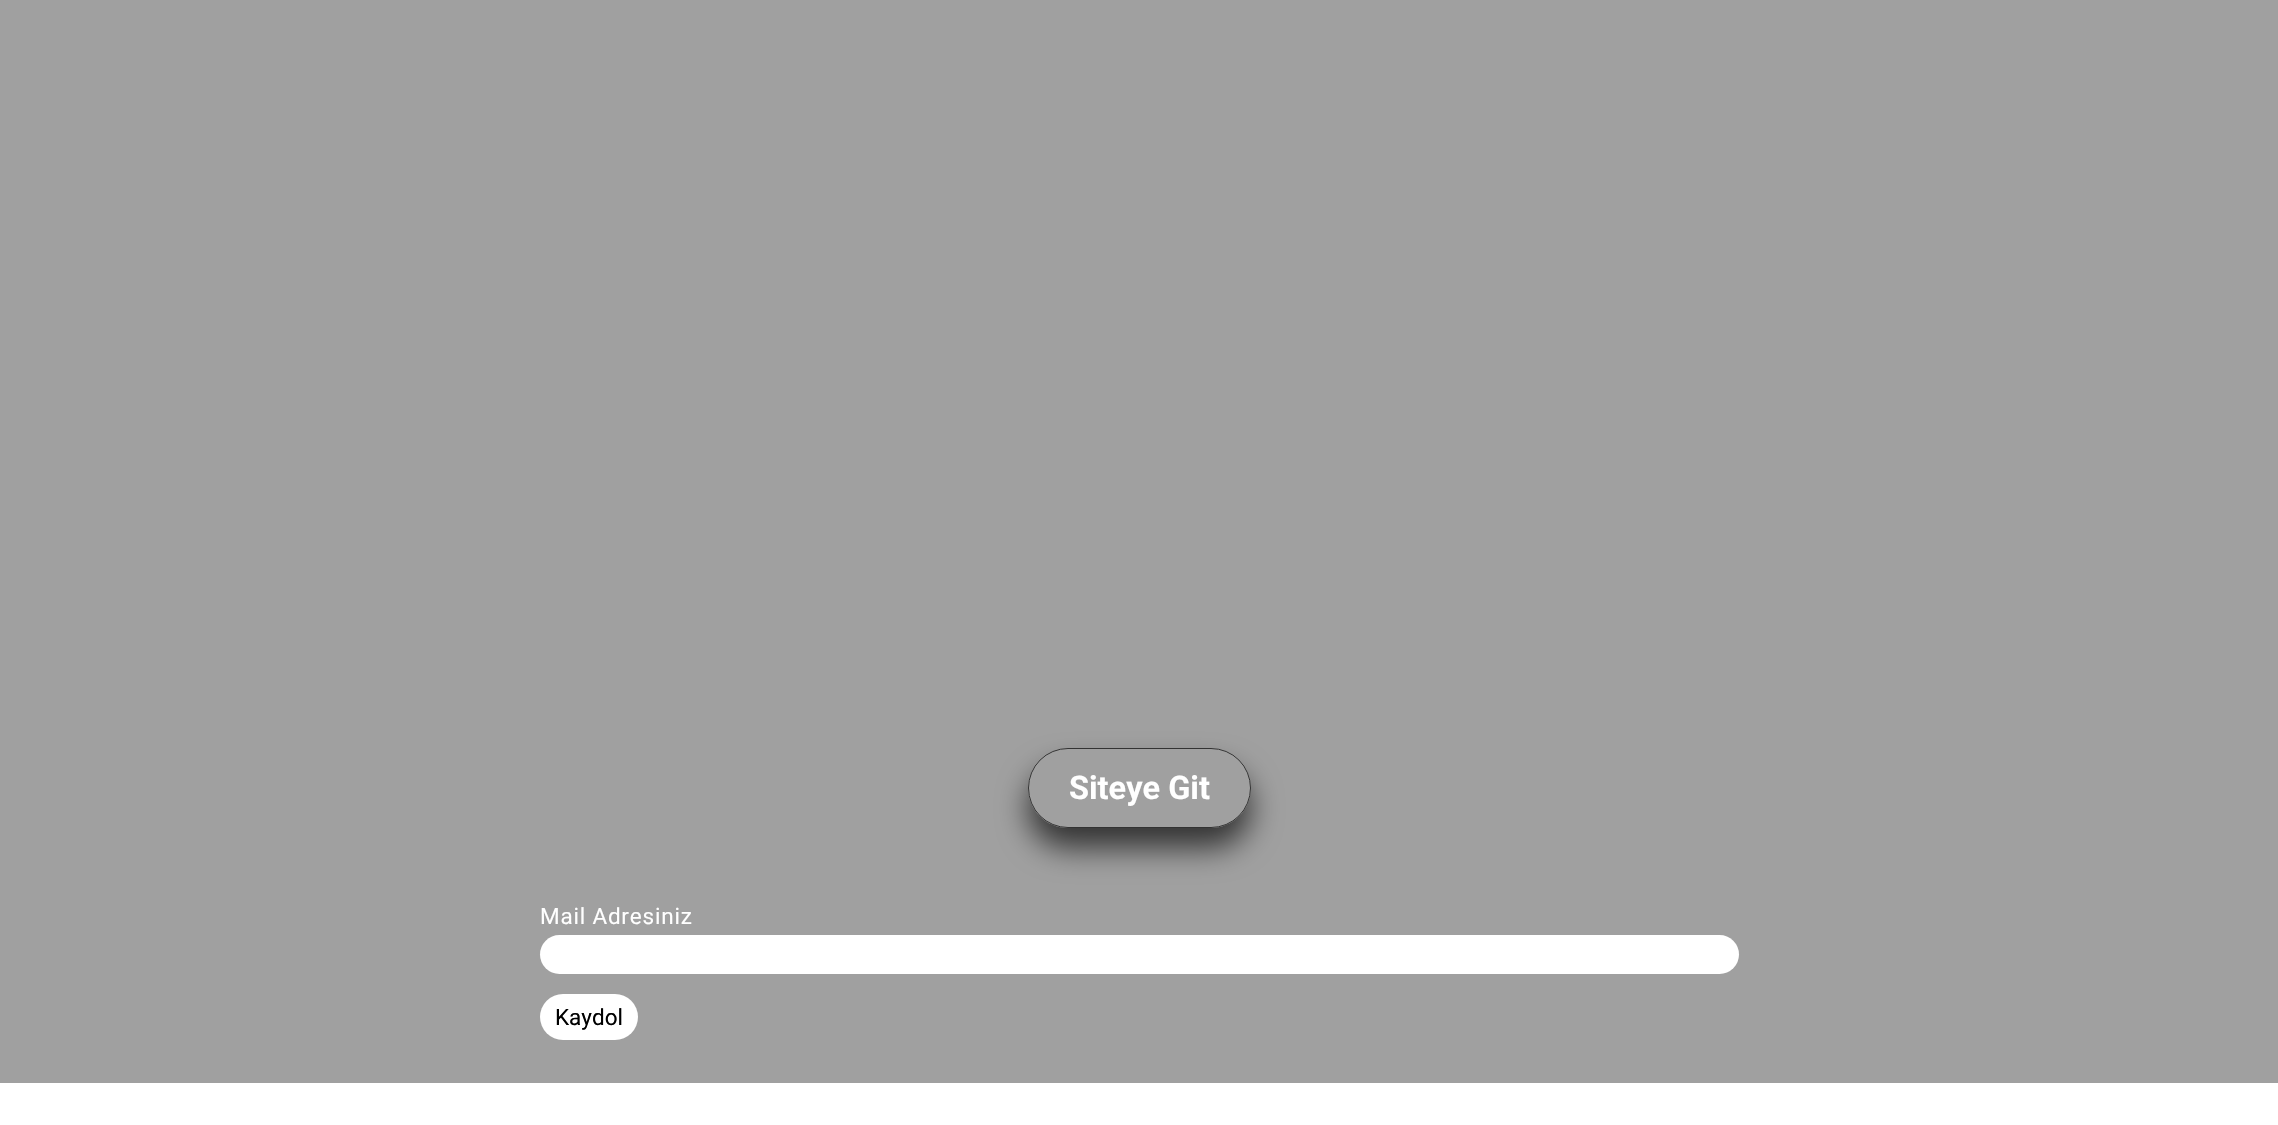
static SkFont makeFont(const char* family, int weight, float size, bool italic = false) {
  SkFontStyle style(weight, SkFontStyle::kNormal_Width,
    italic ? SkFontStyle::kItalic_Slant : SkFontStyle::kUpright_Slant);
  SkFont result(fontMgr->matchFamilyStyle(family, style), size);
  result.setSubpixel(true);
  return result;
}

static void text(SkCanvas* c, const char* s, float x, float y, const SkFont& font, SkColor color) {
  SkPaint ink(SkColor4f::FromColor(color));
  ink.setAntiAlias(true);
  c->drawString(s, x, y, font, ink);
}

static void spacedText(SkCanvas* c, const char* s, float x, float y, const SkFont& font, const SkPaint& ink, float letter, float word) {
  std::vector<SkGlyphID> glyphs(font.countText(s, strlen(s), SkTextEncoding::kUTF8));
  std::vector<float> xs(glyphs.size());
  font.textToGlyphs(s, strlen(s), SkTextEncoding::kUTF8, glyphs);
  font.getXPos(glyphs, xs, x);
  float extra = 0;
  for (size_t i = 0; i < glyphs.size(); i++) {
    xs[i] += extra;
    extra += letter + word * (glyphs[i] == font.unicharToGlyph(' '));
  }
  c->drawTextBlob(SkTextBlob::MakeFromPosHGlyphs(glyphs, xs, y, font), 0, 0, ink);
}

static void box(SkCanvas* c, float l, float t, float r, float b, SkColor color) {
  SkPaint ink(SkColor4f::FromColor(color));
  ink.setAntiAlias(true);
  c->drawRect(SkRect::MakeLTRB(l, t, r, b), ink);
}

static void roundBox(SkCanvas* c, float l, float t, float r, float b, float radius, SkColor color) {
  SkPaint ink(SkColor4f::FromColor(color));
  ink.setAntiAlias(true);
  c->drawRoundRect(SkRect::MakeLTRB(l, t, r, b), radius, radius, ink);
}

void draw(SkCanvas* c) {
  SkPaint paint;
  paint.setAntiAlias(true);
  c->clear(0xffffffff);
  box(c, 0, 0, 2278, 1083, 0xffa0a0a0);
  c->save();
  c->clipPath(SkPathBuilder(SkPathFillType::kEvenOdd).moveTo(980, 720).lineTo(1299, 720).lineTo(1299, 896).lineTo(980, 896).close().moveTo(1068, 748).lineTo(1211, 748).cubicTo(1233, 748, 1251, 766, 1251, 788).cubicTo(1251, 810, 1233, 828, 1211, 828).lineTo(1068, 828).cubicTo(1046, 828, 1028, 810, 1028, 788).cubicTo(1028, 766, 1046, 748, 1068, 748).close().detach(), true);
  paint.setColor(0xff333333);
  paint.setMaskFilter(SkMaskFilter::MakeBlur(kNormal_SkBlurStyle, 15.5f));
  c->drawRoundRect(SkRect::MakeLTRB(1028, 768, 1251, 848), 40, 40, paint);
  paint.setMaskFilter(nullptr);
  c->restore();
  paint.setStyle(SkPaint::kStroke_Style);
  paint.setStrokeWidth(1);
  c->drawRoundRect(SkRect::MakeLTRB(1028.5f, 748.5f, 1250.5f, 827.5f), 39.5f, 39.5f, paint);
  SkFont face1 = makeFont("Roboto", 700, 32.5f);
  text(c, "Siteye Git", 1069, 799, face1, 0xffffffff);
  SkFont face2 = makeFont("Roboto", 400, 22.5f);
  paint.setStyle(SkPaint::kFill_Style);
  paint.setColor(0xffffffff);
  spacedText(c, "Mail Adresiniz", 540, 924, face2, paint, 0.8f, 0);
  roundBox(c, 540, 935, 1739, 974, 19.5f, 0xffffffff);
  roundBox(c, 540, 994, 638, 1040, 23, 0xffffffff);
  text(c, "Kaydol", 555, 1025, face2, 0xff000000);
}
